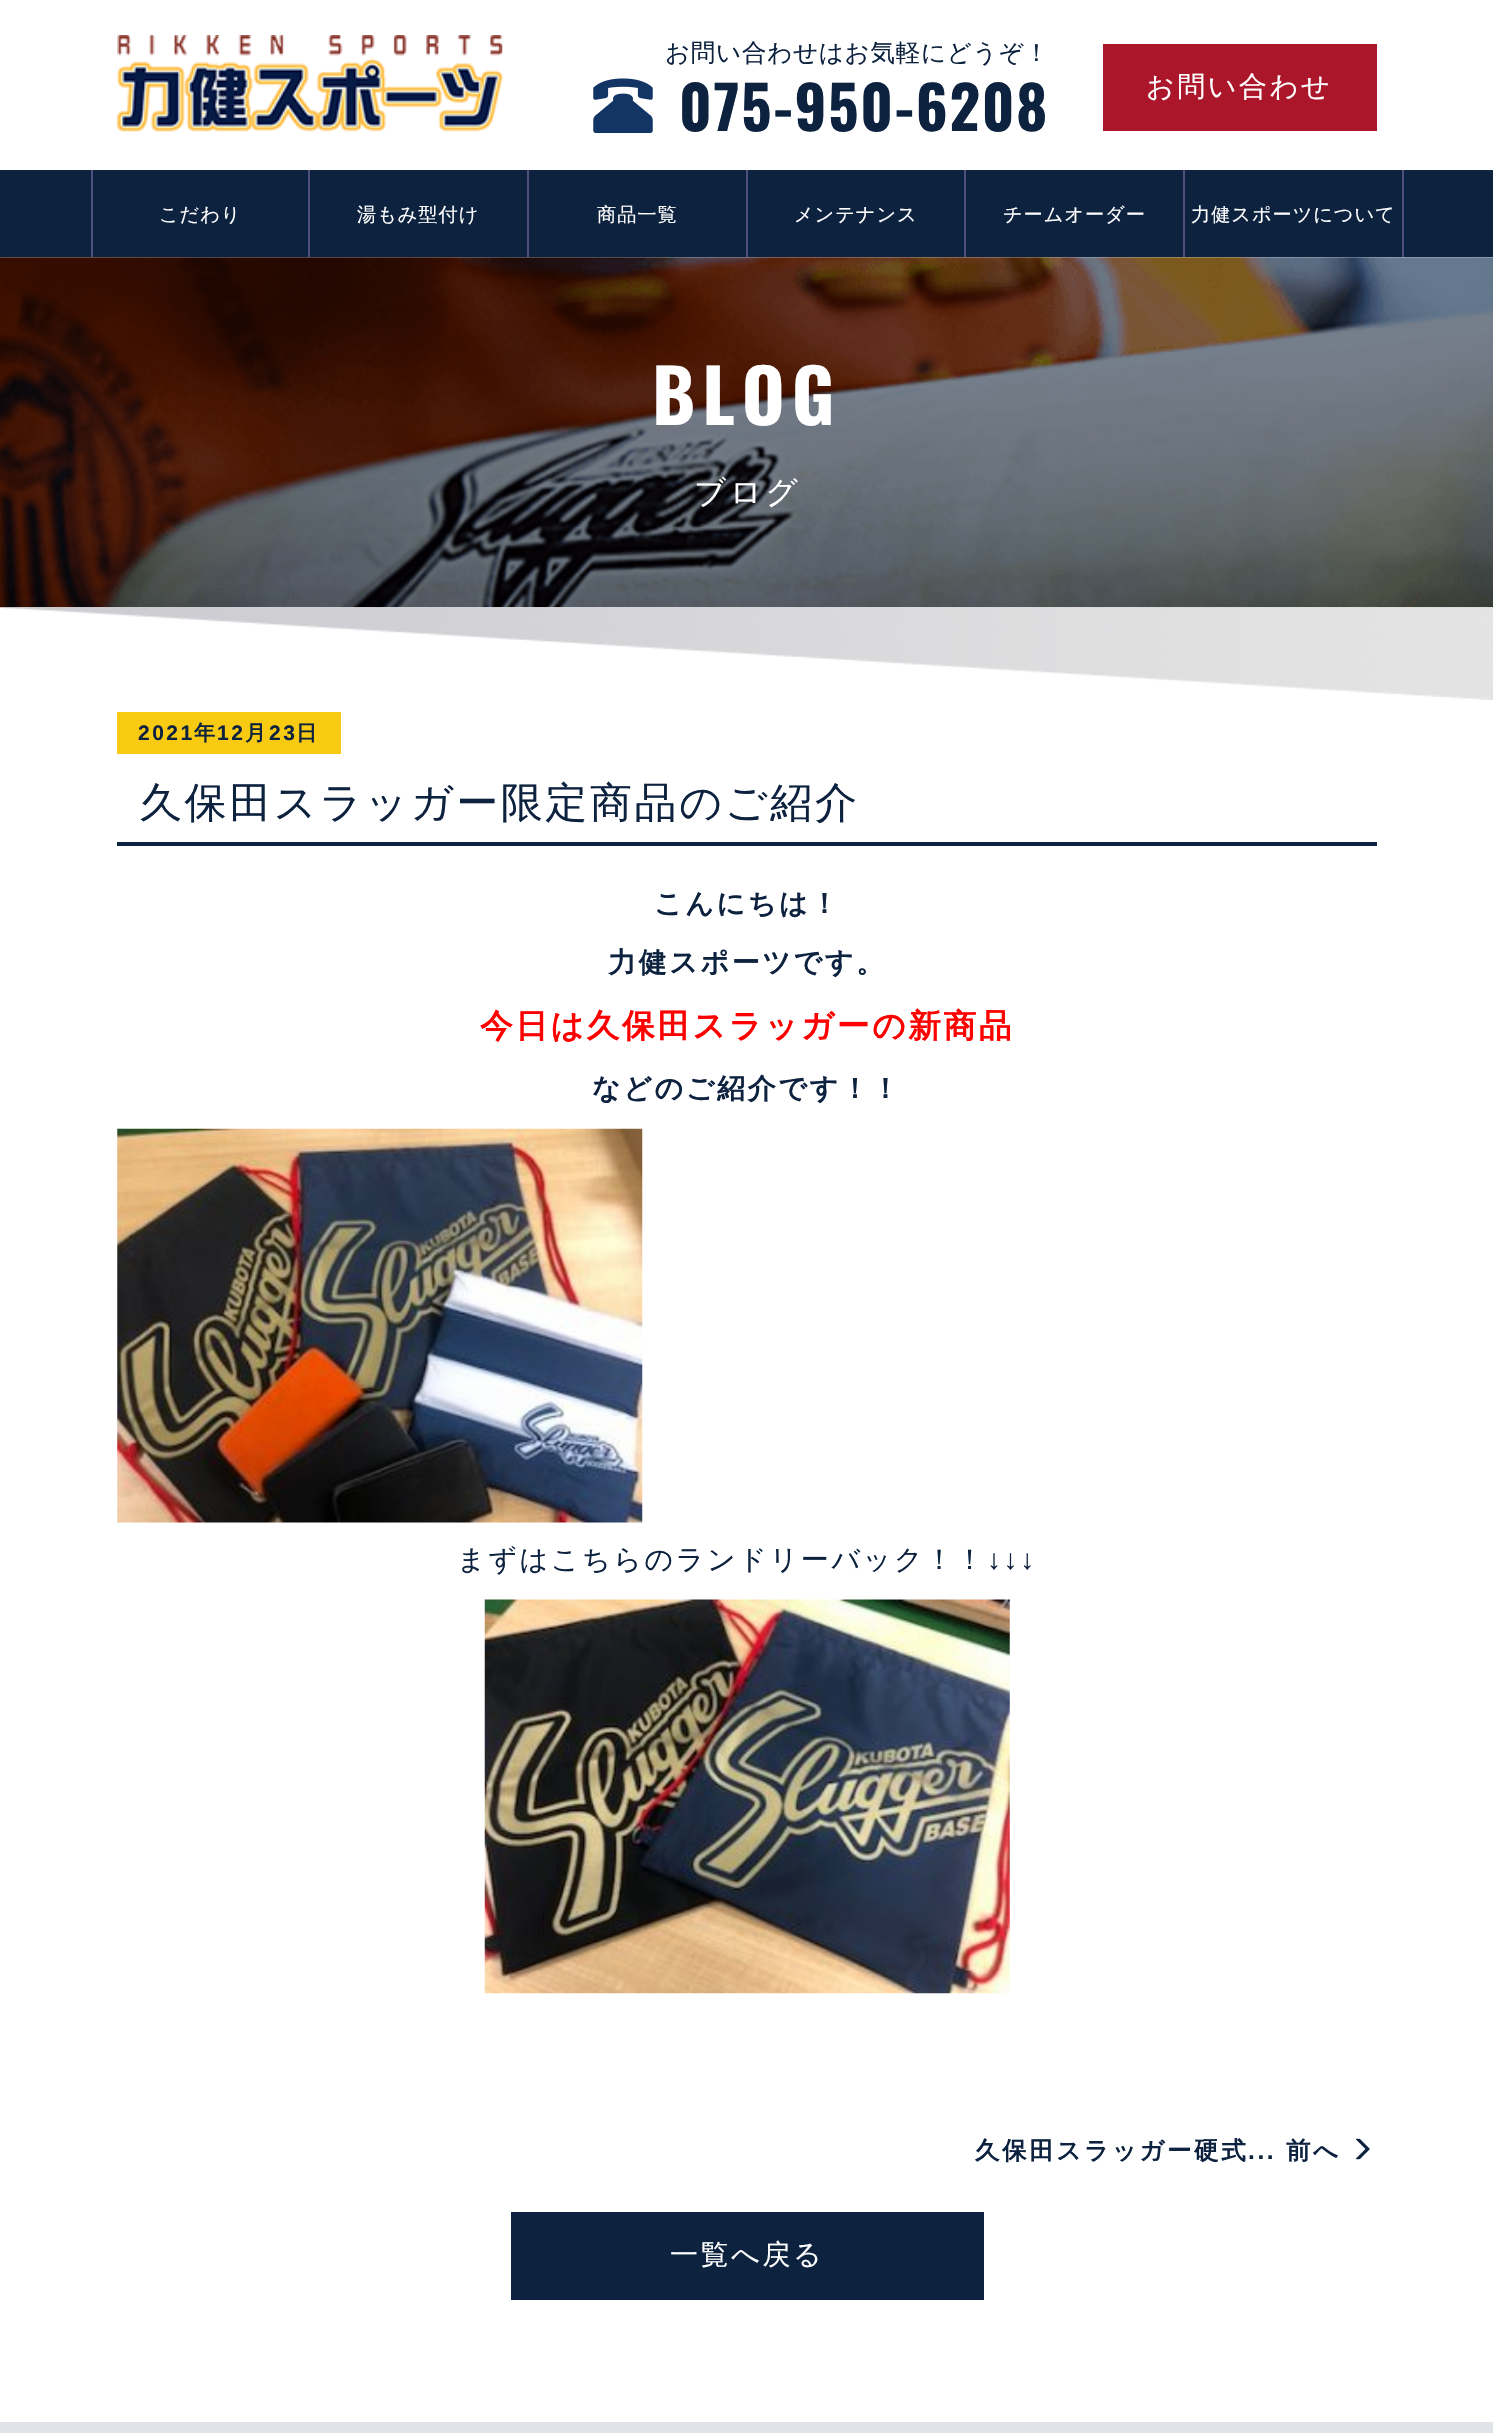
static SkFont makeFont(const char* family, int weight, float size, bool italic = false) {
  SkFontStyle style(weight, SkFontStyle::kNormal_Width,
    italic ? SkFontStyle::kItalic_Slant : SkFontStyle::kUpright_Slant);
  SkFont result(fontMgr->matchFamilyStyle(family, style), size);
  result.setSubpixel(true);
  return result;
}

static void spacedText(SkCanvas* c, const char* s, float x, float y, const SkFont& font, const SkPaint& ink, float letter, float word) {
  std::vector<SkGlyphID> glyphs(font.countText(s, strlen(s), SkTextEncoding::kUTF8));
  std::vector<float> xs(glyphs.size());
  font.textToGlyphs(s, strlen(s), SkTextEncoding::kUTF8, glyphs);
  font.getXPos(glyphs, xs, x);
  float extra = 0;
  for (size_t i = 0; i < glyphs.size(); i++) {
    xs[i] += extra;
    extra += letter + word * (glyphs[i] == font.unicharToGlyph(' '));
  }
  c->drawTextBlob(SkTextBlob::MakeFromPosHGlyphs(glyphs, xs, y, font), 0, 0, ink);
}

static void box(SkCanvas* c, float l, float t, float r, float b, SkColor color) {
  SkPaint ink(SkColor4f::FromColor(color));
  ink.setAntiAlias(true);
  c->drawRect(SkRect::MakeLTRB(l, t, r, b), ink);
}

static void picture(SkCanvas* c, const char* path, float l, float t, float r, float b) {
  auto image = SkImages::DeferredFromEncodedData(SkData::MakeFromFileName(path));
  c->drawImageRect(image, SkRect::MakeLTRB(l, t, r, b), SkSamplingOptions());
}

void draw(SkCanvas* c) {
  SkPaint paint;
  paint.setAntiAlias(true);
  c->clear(0xffffffff);
  picture(c, "img_01.png", 117, 35, 503, 132);
  SkFont face1 = makeFont("WenQuanYi Zen Hei", 500, 24.5f);
  paint.setColor(0xff0d223f);
  spacedText(c, "お問い合わせはお気軽にどうぞ！", 665, 61, face1, paint, 0.75f, 0);
  picture(c, "img_02.png", 593, 78, 653, 133);
  SkFont face2 = makeFont("Oswald", 700, 59.5f);
  spacedText(c, "075-950-6208", 679, 131, face2, paint, 1.75f, 0);
  box(c, 1103, 44, 1377, 131, 0xffac162b);
  SkFont face3 = makeFont("WenQuanYi Zen Hei", 500, 28);
  paint.setColor(0xffffffff);
  spacedText(c, "お問い合わせ", 1146, 96, face3, paint, 2.6f, 0);
  box(c, 0, 170, 1493, 257, 0xff0d223f);
  box(c, 308, 170, 310, 257, 0xff50507e);
  box(c, 91, 170, 93, 257, 0xff50507e);
  SkFont face4 = makeFont("WenQuanYi Zen Hei", 500, 19.25f);
  spacedText(c, "こだわり", 159, 221, face4, paint, 0.9f, 0);
  box(c, 527, 170, 529, 257, 0xff50507e);
  spacedText(c, "湯もみ型付け", 357, 221, face4, paint, 0.9f, 0);
  box(c, 746, 170, 748, 257, 0xff50507e);
  spacedText(c, "商品一覧", 597, 221, face4, paint, 0.9f, 0);
  box(c, 964, 170, 966, 257, 0xff50507e);
  spacedText(c, "メンテナンス", 794, 221, face4, paint, 0.9f, 0);
  box(c, 1183, 170, 1185, 257, 0xff50507e);
  spacedText(c, "チームオーダー", 1003, 221, face4, paint, 0.9f, 0);
  box(c, 1402, 170, 1404, 257, 0xff50507e);
  spacedText(c, "力健スポーツについて", 1191, 221, face4, paint, 0.9f, 0);
  picture(c, "img_03.png", 0, 257, 1493, 608);
  SkFont face5 = makeFont("Oswald", 700, 73.5f);
  spacedText(c, "BLOG", 652, 425, face5, paint, 7, 0);
  SkFont face6 = makeFont("WenQuanYi Zen Hei", 500, 31.5f);
  spacedText(c, "ブログ", 694, 503, face6, paint, 3.5f, 0);
  picture(c, "img_04.png", 3, 607, 1493, 700);
  box(c, 117, 712, 341, 754, 0xfff8ca12);
  SkFont face7 = makeFont("Liberation Sans", 700, 21);
  paint.setColor(0xff0d223f);
  spacedText(c, "2021", 138, 740, face7, paint, 2.5f, 0);
  SkFont face8 = makeFont("WenQuanYi Zen Hei", 700, 21);
  spacedText(c, "年", 194, 740, face8, paint, 2.5f, 0);
  spacedText(c, "12", 217, 740, face7, paint, 2.5f, 0);
  spacedText(c, "月", 245, 740, face8, paint, 2.5f, 0);
  spacedText(c, "23", 269, 740, face7, paint, 2.5f, 0);
  spacedText(c, "日", 296, 740, face8, paint, 2.5f, 0);
  box(c, 117, 842, 1377, 846, 0xff0d223f);
  SkFont face9 = makeFont("WenQuanYi Zen Hei", 500, 42);
  spacedText(c, "久保田スラッガー限定商品のご紹介", 140, 817, face9, paint, 2.6f, 0);
  SkFont face10 = makeFont("WenQuanYi Zen Hei", 700, 28);
  spacedText(c, "こんにちは！", 654, 913, face10, paint, 2.6f, 0);
  spacedText(c, "力健スポーツです。", 608, 972, face10, paint, 2.6f, 0);
  SkFont face11 = makeFont("WenQuanYi Zen Hei", 700, 32.7f);
  paint.setColor(0xffff0000);
  spacedText(c, "今日は久保田スラッガーの新商品", 480, 1037, face11, paint, 2.6f, 0);
  paint.setColor(0xff0d223f);
  spacedText(c, "などのご紹介です！！", 592, 1098, face10, paint, 2.6f, 0);
  picture(c, "img_05.png", 117, 1128, 643, 1523);
  spacedText(c, "まずはこちらのランドリーバック！！", 457, 1569, face3, paint, 2.6f, 0);
  SkFont face12 = makeFont("Liberation Sans", 400, 28);
  spacedText(c, "↓↓↓", 987, 1569, face12, paint, 2.6f, 0);
  picture(c, "img_06.png", 484, 1599, 1010, 1994);
  SkFont face13 = makeFont("WenQuanYi Zen Hei", 700, 24.5f);
  spacedText(c, "久保田スラッガー硬式", 975, 2159, face13, paint, 2.6f, 0);
  SkFont face14 = makeFont("Liberation Sans", 700, 24.5f);
  spacedText(c, "...", 1248, 2159, face14, paint, 2.6f, 0);
  spacedText(c, "前へ", 1286, 2159, face13, paint, 2.6f, 0);
  picture(c, "img_07.png", 1355, 2138, 1370, 2160);
  box(c, 511, 2212, 984, 2300, 0xff0d223f);
  paint.setColor(0xffffffff);
  spacedText(c, "一覧へ戻る", 670, 2264, face3, paint, 2.6f, 0);
  box(c, 0, 2422, 1493, 2433, 0xffe0e3e8);
}
